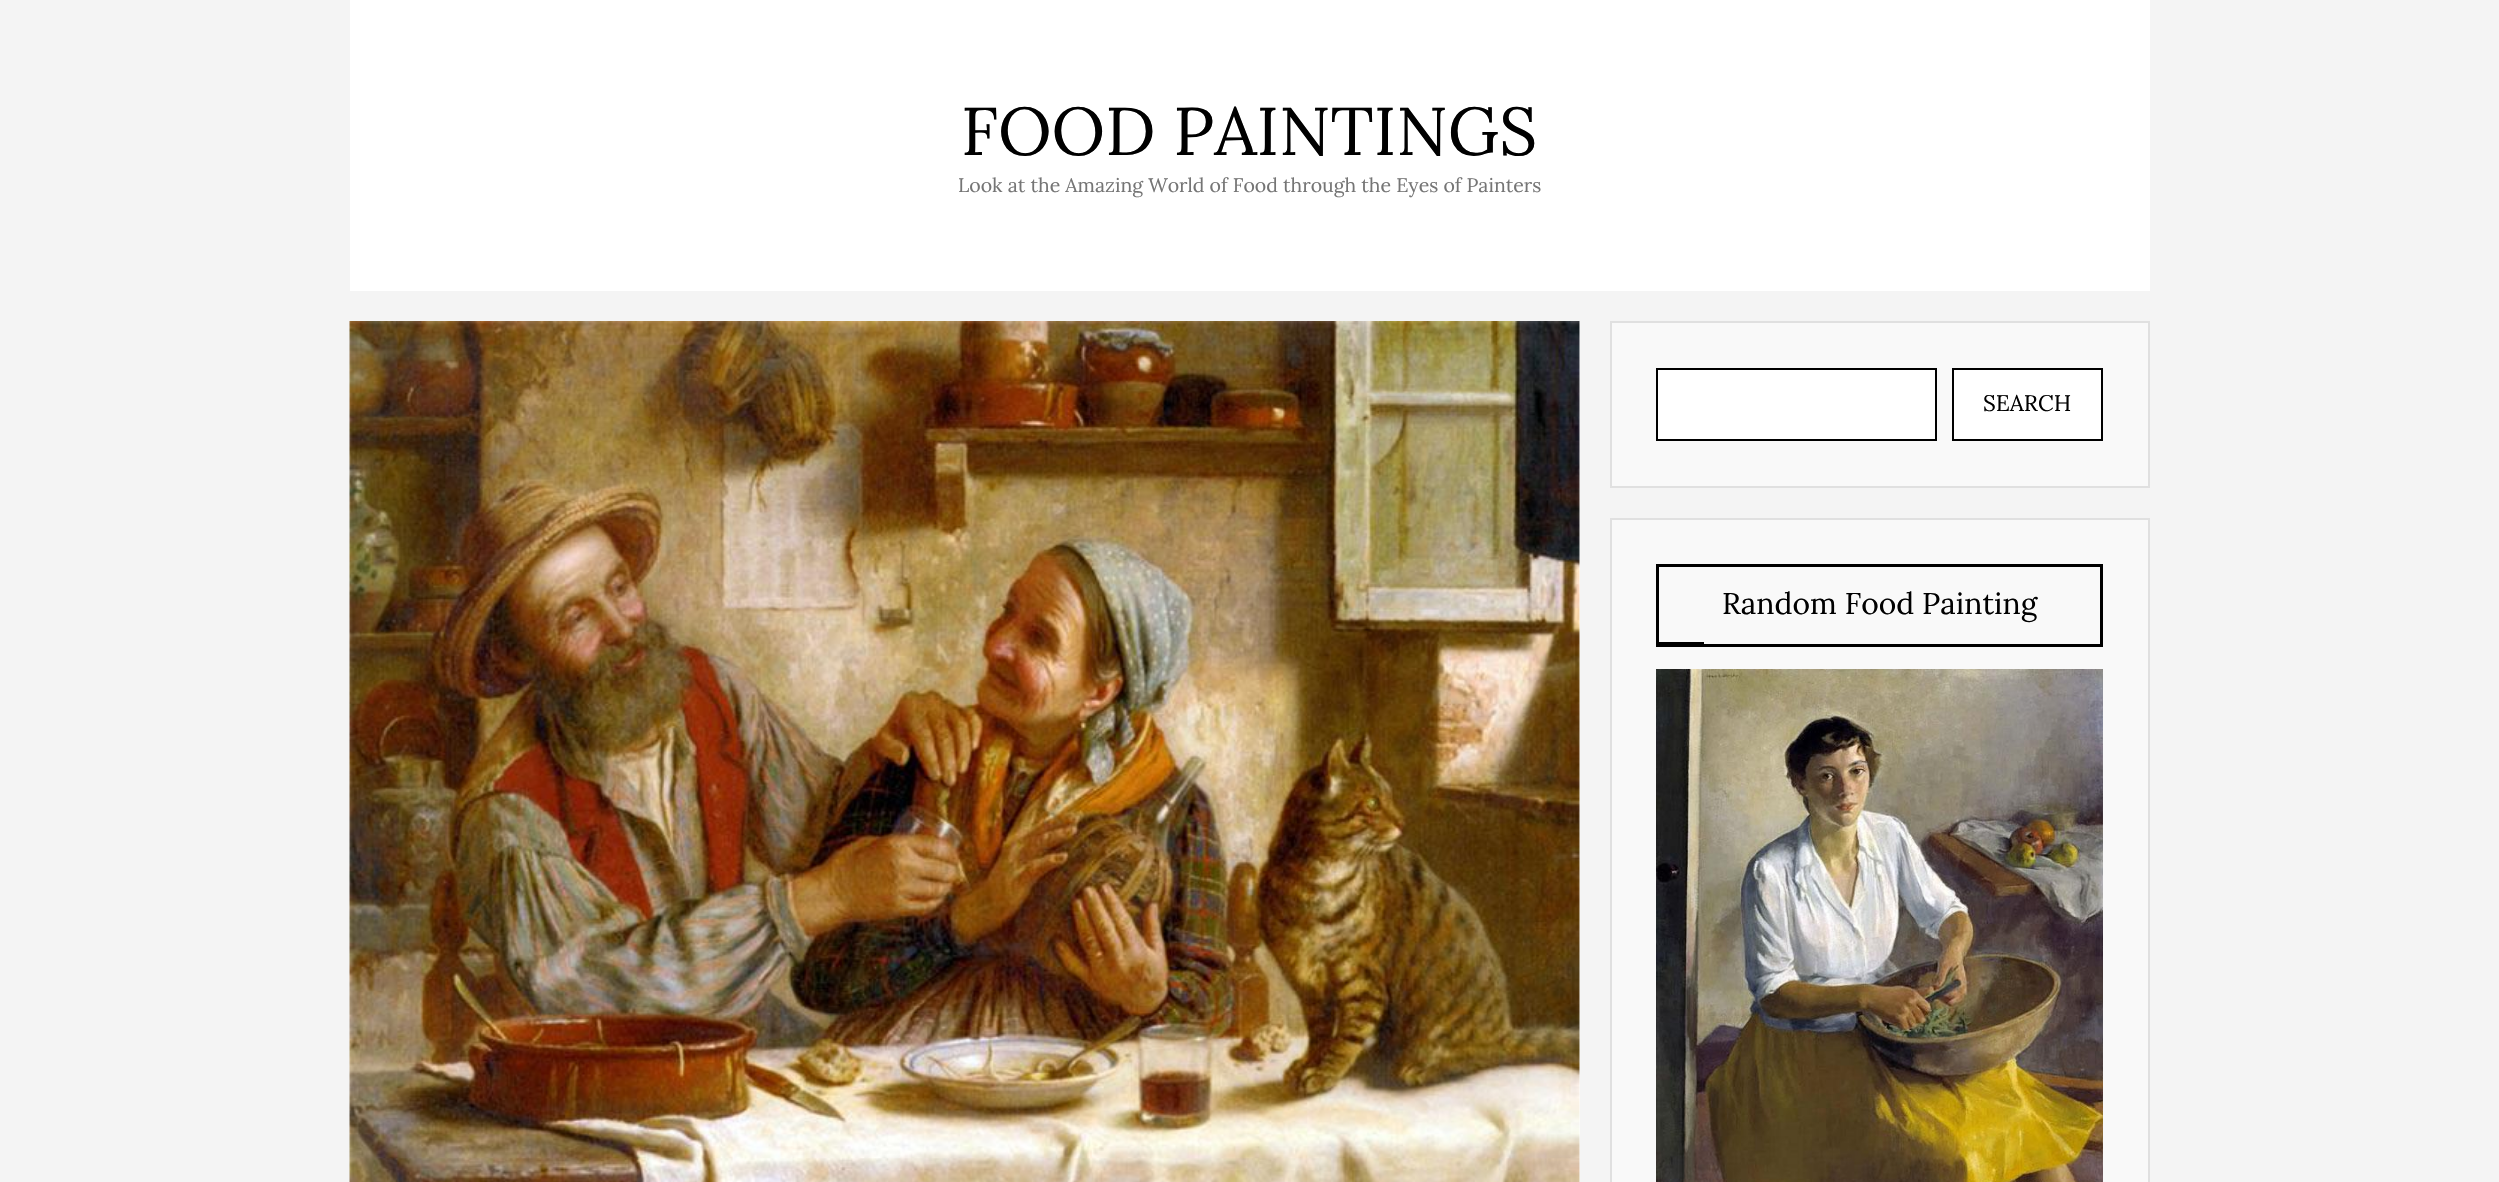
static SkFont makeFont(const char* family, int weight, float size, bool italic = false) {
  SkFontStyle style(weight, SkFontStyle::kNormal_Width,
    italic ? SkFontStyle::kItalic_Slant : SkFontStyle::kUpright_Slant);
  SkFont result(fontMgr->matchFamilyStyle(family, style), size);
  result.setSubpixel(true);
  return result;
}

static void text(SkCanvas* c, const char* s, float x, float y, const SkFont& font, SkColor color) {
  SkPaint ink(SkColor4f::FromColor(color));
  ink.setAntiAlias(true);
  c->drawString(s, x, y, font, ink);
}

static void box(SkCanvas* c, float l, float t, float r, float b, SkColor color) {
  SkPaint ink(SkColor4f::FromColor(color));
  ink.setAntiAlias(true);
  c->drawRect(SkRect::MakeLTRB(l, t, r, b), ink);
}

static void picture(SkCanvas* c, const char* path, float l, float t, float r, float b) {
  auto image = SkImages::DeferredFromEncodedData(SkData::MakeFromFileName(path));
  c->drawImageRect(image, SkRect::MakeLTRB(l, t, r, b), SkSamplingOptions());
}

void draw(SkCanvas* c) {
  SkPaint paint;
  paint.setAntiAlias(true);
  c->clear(0xfff4f4f4);
  box(c, 350, 0, 2150, 291, 0xffffffff);
  SkFont face1 = makeFont("Lora", 400, 67.5f);
  text(c, "FOOD PAINTINGS", 961, 155, face1, 0xff000000);
  SkFont face2 = makeFont("Lora", 400, 19.5f);
  text(c, "Look at the Amazing World of Food through the Eyes of Painters", 958, 192, face2, 0xff757575);
  box(c, 1579, 321, 1580, 1182, 0xffffffff);
  picture(c, "img_01.png", 349, 321, 1580, 1182);
  paint.setColor(0xfff9f9f9);
  c->drawRect(SkRect::MakeLTRB(1611, 322, 2149, 487), paint);
  paint.setStyle(SkPaint::kStroke_Style);
  paint.setStrokeWidth(2);
  paint.setColor(0xffe0e0e0);
  c->drawRect(SkRect::MakeLTRB(1611, 322, 2149, 487), paint);
  paint.setStyle(SkPaint::kFill_Style);
  paint.setColor(0xffffffff);
  c->drawRect(SkRect::MakeLTRB(1657, 369, 1936, 440), paint);
  paint.setStyle(SkPaint::kStroke_Style);
  paint.setColor(0xff000000);
  c->drawRect(SkRect::MakeLTRB(1657, 369, 1936, 440), paint);
  paint.setStyle(SkPaint::kFill_Style);
  paint.setColor(0xffffffff);
  c->drawRect(SkRect::MakeLTRB(1953, 369, 2102, 440), paint);
  paint.setStyle(SkPaint::kStroke_Style);
  paint.setColor(0xff000000);
  c->drawRect(SkRect::MakeLTRB(1953, 369, 2102, 440), paint);
  SkFont face3 = makeFont("Lora", 400, 22.5f);
  text(c, "SEARCH", 1983, 411, face3, 0xff000000);
  paint.setStyle(SkPaint::kFill_Style);
  paint.setColor(0xfff9f9f9);
  c->drawRect(SkRect::MakeLTRB(1611, 519, 2149, 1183), paint);
  paint.setStyle(SkPaint::kStroke_Style);
  paint.setColor(0xffe0e0e0);
  c->drawRect(SkRect::MakeLTRB(1611, 519, 2149, 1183), paint);
  paint.setStrokeWidth(3);
  paint.setColor(0xff000000);
  c->drawRect(SkRect::MakeLTRB(1657.5f, 565.5f, 2101.5f, 645.5f), paint);
  SkFont face4 = makeFont("Lora", 400, 30);
  text(c, "Random Food Painting", 1722, 614, face4, 0xff000000);
  box(c, 1659, 642, 1704, 644, 0xff000000);
  picture(c, "img_02.png", 1656, 669, 2103, 1182);
}
